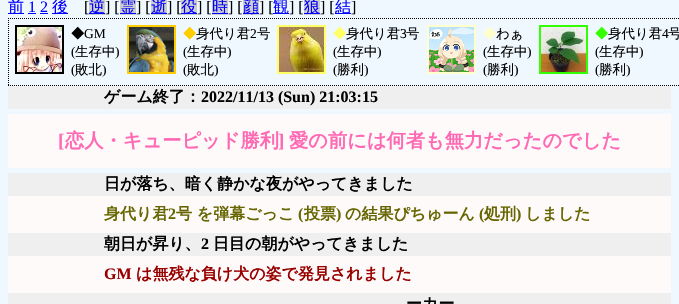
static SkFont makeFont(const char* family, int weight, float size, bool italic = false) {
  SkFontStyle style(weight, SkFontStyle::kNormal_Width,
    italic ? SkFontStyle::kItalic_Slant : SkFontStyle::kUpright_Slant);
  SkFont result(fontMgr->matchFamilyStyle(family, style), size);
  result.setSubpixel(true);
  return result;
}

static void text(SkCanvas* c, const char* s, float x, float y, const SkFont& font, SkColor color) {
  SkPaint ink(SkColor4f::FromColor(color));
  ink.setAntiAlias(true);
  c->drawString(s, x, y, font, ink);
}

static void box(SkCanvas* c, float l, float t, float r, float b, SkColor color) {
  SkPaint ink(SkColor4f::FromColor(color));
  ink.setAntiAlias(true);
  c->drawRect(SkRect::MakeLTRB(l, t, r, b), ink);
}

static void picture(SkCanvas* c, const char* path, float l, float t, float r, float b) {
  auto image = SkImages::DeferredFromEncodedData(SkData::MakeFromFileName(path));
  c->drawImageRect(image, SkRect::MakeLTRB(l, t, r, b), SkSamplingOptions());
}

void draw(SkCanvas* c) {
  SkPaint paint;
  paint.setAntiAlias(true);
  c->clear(0xfff0f8ff);
  box(c, 8, 13, 24, 14, 0xff0000ff);
  SkFont face1 = makeFont("WenQuanYi Zen Hei", 500, 16);
  text(c, "前", 8, 12, face1, 0xff0000ff);
  SkFont face2 = makeFont("Liberation Serif", 400, 16);
  text(c, "1 2", 28, 12, face2, 0xff0000ff);
  box(c, 28, 13, 36, 14, 0xff0000ff);
  box(c, 52, 13, 68, 14, 0xff0000ff);
  text(c, "後", 52, 12, face1, 0xff0000ff);
  text(c, "[", 84, 12, face2, 0xff000000);
  box(c, 89, 0, 105, 15, 0xffcccccc);
  box(c, 89, 13, 105, 14, 0xff0000ff);
  text(c, "逆", 89, 12, face1, 0xff0000ff);
  text(c, "] [", 105, 12, face2, 0xff000000);
  box(c, 120, 0, 136, 15, 0xffcccccc);
  box(c, 120, 13, 136, 14, 0xff0000ff);
  text(c, "霊", 120, 12, face1, 0xff0000ff);
  text(c, "] [", 136, 12, face2, 0xff000000);
  box(c, 151, 0, 167, 15, 0xffcccccc);
  box(c, 151, 13, 167, 14, 0xff0000ff);
  text(c, "逝", 151, 12, face1, 0xff0000ff);
  text(c, "] [", 167, 12, face2, 0xff000000);
  box(c, 181, 0, 197, 15, 0xffcccccc);
  box(c, 181, 13, 197, 14, 0xff0000ff);
  text(c, "役", 181, 12, face1, 0xff0000ff);
  text(c, "] [", 197, 12, face2, 0xff000000);
  box(c, 212, 0, 228, 15, 0xffcccccc);
  box(c, 212, 13, 228, 14, 0xff0000ff);
  text(c, "時", 212, 12, face1, 0xff0000ff);
  text(c, "] [", 228, 12, face2, 0xff000000);
  box(c, 243, 0, 259, 15, 0xffcccccc);
  box(c, 243, 13, 259, 14, 0xff0000ff);
  text(c, "顔", 243, 12, face1, 0xff0000ff);
  text(c, "] [", 259, 12, face2, 0xff000000);
  box(c, 273, 13, 289, 14, 0xff0000ff);
  text(c, "観", 273, 12, face1, 0xff0000ff);
  text(c, "] [", 289, 12, face2, 0xff000000);
  box(c, 304, 0, 320, 15, 0xffcccccc);
  box(c, 304, 13, 320, 14, 0xff0000ff);
  text(c, "狼", 304, 12, face1, 0xff0000ff);
  text(c, "] [", 320, 12, face2, 0xff000000);
  box(c, 335, 13, 351, 14, 0xff0000ff);
  text(c, "結", 335, 12, face1, 0xff0000ff);
  text(c, "]", 351, 12, face2, 0xff000000);
  box(c, 40, 13, 48, 14, 0xff0000ff);
  paint.setStyle(SkPaint::kStroke_Style);
  paint.setStrokeWidth(1);
  paint.setColor(0xff000000);
  paint.setPathEffect(SkDashPathEffect::Make({{1, 1}}, 0));
  c->drawPath(SkPathBuilder().moveTo(8, 18.5f).lineTo(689, 18.5f).detach(), paint);
  paint.setPathEffect(nullptr);
  paint.setPathEffect(SkDashPathEffect::Make({{1, 1}}, 0));
  c->drawPath(SkPathBuilder().moveTo(8, 85.5f).lineTo(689, 85.5f).detach(), paint);
  paint.setPathEffect(nullptr);
  paint.setPathEffect(SkDashPathEffect::Make({{1, 1}}, 0));
  c->drawPath(SkPathBuilder().moveTo(8.5f, 18).lineTo(8.5f, 86).detach(), paint);
  paint.setPathEffect(nullptr);
  paint.setStrokeWidth(2);
  c->drawRect(SkRect::MakeLTRB(16, 26, 63, 73), paint);
  picture(c, "img_01.png", 17, 27, 62, 72);
  SkFont face3 = makeFont("WenQuanYi Zen Hei", 500, 13.5f);
  text(c, "◆", 71, 38, face3, 0xff000000);
  SkFont face4 = makeFont("Liberation Serif", 400, 13.5f);
  text(c, "GM", 84, 38, face4, 0xff000000);
  text(c, "(", 71, 56, face4, 0xff000000);
  text(c, "生存中", 75, 56, face3, 0xff000000);
  text(c, ")", 115, 56, face4, 0xff000000);
  text(c, "(", 71, 74, face4, 0xff000000);
  text(c, "敗北", 75, 74, face3, 0xff000000);
  text(c, ")", 102, 74, face4, 0xff000000);
  paint.setColor(0xffffcc00);
  c->drawRect(SkRect::MakeLTRB(128, 26, 175, 73), paint);
  picture(c, "img_02.png", 129, 27, 174, 72);
  text(c, "◆", 183, 38, face3, 0xffffcc00);
  text(c, "身代り君", 196, 38, face3, 0xff000000);
  text(c, "2", 250, 38, face4, 0xff000000);
  text(c, "号", 257, 38, face3, 0xff000000);
  text(c, "(", 183, 56, face4, 0xff000000);
  text(c, "生存中", 187, 56, face3, 0xff000000);
  text(c, ")", 227, 56, face4, 0xff000000);
  text(c, "(", 183, 74, face4, 0xff000000);
  text(c, "敗北", 187, 74, face3, 0xff000000);
  text(c, ")", 214, 74, face4, 0xff000000);
  paint.setColor(0xffffff66);
  c->drawRect(SkRect::MakeLTRB(278, 26, 325, 73), paint);
  picture(c, "img_03.png", 279, 27, 324, 72);
  text(c, "◆", 333, 38, face3, 0xffffff66);
  text(c, "身代り君", 346, 38, face3, 0xff000000);
  text(c, "3", 400, 38, face4, 0xff000000);
  text(c, "号", 406, 38, face3, 0xff000000);
  text(c, "(", 333, 56, face4, 0xff000000);
  text(c, "生存中", 337, 56, face3, 0xff000000);
  text(c, ")", 377, 56, face4, 0xff000000);
  text(c, "(", 333, 74, face4, 0xff000000);
  text(c, "勝利", 337, 74, face3, 0xff000000);
  text(c, ")", 364, 74, face4, 0xff000000);
  paint.setColor(0xffffffcc);
  c->drawRect(SkRect::MakeLTRB(428, 26, 475, 73), paint);
  picture(c, "img_04.png", 429, 27, 474, 72);
  text(c, "◆", 483, 38, face3, 0xffffffcc);
  text(c, "わぁ", 496, 38, face3, 0xff000000);
  text(c, "(", 483, 56, face4, 0xff000000);
  text(c, "生存中", 487, 56, face3, 0xff000000);
  text(c, ")", 527, 56, face4, 0xff000000);
  text(c, "(", 483, 74, face4, 0xff000000);
  text(c, "勝利", 487, 74, face3, 0xff000000);
  text(c, ")", 514, 74, face4, 0xff000000);
  paint.setColor(0xff33ff00);
  c->drawRect(SkRect::MakeLTRB(540, 26, 587, 73), paint);
  picture(c, "img_05.png", 541, 27, 586, 72);
  text(c, "◆", 595, 38, face3, 0xff33ff00);
  text(c, "身代り君", 608, 38, face3, 0xff000000);
  text(c, "4", 662, 38, face4, 0xff000000);
  text(c, "号", 668, 38, face3, 0xff000000);
  text(c, "(", 595, 56, face4, 0xff000000);
  text(c, "生存中", 599, 56, face3, 0xff000000);
  text(c, ")", 639, 56, face4, 0xff000000);
  text(c, "(", 595, 74, face4, 0xff000000);
  text(c, "勝利", 599, 74, face3, 0xff000000);
  text(c, ")", 626, 74, face4, 0xff000000);
  box(c, 8, 86, 671, 109, 0xffefefef);
  SkFont face5 = makeFont("WenQuanYi Zen Hei", 700, 16);
  text(c, "ゲーム終了：", 104, 102, face5, 0xff000000);
  SkFont face6 = makeFont("Liberation Serif", 700, 16);
  text(c, "2022/11/13 (Sun) 21:03:15", 201, 102, face6, 0xff000000);
  box(c, 8, 114, 671, 168, 0xfffffafa);
  SkFont face7 = makeFont("Liberation Serif", 700, 19.25f);
  text(c, "[", 58, 147, face7, 0xffff69b4);
  SkFont face8 = makeFont("WenQuanYi Zen Hei", 700, 19.25f);
  text(c, "恋人・キューピッド勝利", 65, 147, face8, 0xffff69b4);
  text(c, "]", 278, 147, face7, 0xffff69b4);
  text(c, "愛の前には何者も無力だったのでした", 289, 147, face8, 0xffff69b4);
  box(c, 8, 173, 671, 196, 0xffefefef);
  text(c, "日が落ち、暗く静かな夜がやってきました", 104, 189, face5, 0xff000000);
  box(c, 8, 196, 671, 233, 0xfffffafa);
  text(c, "身代り君", 104, 219, face5, 0xff666600);
  text(c, "2", 168, 219, face6, 0xff666600);
  text(c, "号 を弾幕ごっこ", 176, 219, face5, 0xff666600);
  text(c, "(", 298, 219, face6, 0xff666600);
  text(c, "投票", 304, 219, face5, 0xff666600);
  text(c, ")", 336, 219, face6, 0xff666600);
  text(c, "の結果ぴちゅーん", 345, 219, face5, 0xff666600);
  text(c, "(", 479, 219, face6, 0xff666600);
  text(c, "処刑", 484, 219, face5, 0xff666600);
  text(c, ")", 516, 219, face6, 0xff666600);
  text(c, "しました", 525, 219, face5, 0xff666600);
  box(c, 8, 233, 671, 256, 0xffefefef);
  text(c, "朝日が昇り、", 104, 249, face5, 0xff000000);
  text(c, "2", 201, 249, face6, 0xff000000);
  text(c, "日目の朝がやってきました", 213, 249, face5, 0xff000000);
  box(c, 8, 256, 671, 293, 0xfffffafa);
  text(c, "GM", 104, 279, face6, 0xff990000);
  text(c, "は無残な負け犬の姿で発見されました", 136, 279, face5, 0xff990000);
  box(c, 8, 293, 671, 304, 0xffefefef);
  text(c, "ーカー", 406, 309, face5, 0xff000000);
}
